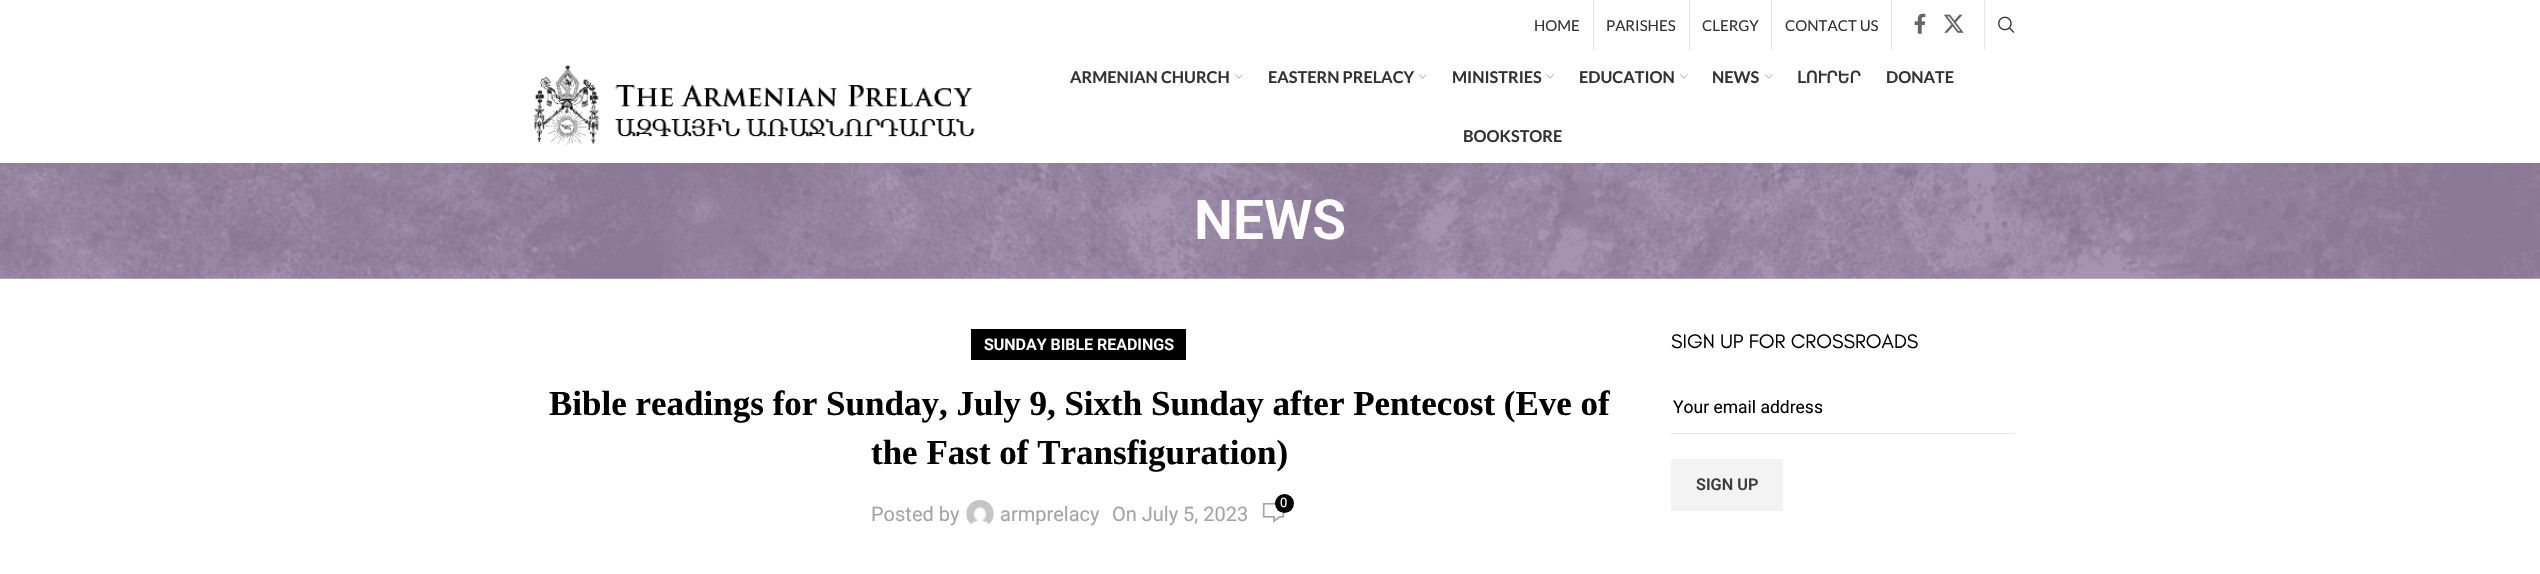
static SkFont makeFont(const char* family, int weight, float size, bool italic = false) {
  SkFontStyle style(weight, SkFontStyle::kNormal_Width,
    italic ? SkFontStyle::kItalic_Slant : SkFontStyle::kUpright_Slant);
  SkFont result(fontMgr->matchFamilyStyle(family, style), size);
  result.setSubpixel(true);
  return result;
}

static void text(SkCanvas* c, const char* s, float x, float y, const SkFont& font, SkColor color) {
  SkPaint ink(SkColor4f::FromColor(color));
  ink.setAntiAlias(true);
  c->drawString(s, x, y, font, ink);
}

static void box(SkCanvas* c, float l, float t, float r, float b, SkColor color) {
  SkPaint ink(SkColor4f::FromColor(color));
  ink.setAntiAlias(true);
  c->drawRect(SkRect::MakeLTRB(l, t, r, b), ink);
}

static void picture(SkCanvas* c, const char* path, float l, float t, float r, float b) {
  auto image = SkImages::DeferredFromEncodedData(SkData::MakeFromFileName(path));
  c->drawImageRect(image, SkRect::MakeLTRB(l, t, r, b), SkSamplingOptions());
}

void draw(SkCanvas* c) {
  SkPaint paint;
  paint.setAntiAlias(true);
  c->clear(0xffffffff);
  SkFont face1 = makeFont("Lato", 400, 15);
  text(c, "HOME", 1534, 31, face1, 0xff333333);
  box(c, 1593, 0, 1594, 50, 0xffe4e4e4);
  text(c, "PARISHES", 1606, 31, face1, 0xff333333);
  box(c, 1689, 0, 1690, 50, 0xffe4e4e4);
  text(c, "CLERGY", 1702, 31, face1, 0xff333333);
  box(c, 1771, 0, 1772, 50, 0xffe4e4e4);
  text(c, "CONTACT US", 1785, 31, face1, 0xff333333);
  box(c, 1891, 0, 1892, 50, 0xffe4e4e4);
  picture(c, "img_01.png", 1914, 13, 1926, 34);
  picture(c, "img_02.png", 1943, 14, 1964, 33);
  box(c, 1984, 0, 1985, 50, 0xffe4e4e4);
  picture(c, "img_03.png", 1998, 16, 2015, 33);
  picture(c, "img_04.png", 533, 64, 975, 146);
  SkFont face2 = makeFont("Lato", 700, 16.25f);
  text(c, "ARMENIAN CHURCH", 1070, 83, face2, 0xff333333);
  picture(c, "img_05.png", 1235, 74, 1243, 79);
  text(c, "EASTERN PRELACY", 1268, 83, face2, 0xff333333);
  picture(c, "img_06.png", 1418, 74, 1427, 79);
  text(c, "MINISTRIES", 1452, 83, face2, 0xff333333);
  picture(c, "img_07.png", 1546, 74, 1554, 79);
  text(c, "EDUCATION", 1579, 83, face2, 0xff333333);
  picture(c, "img_05.png", 1680, 74, 1688, 79);
  text(c, "NEWS", 1712, 83, face2, 0xff333333);
  picture(c, "img_05.png", 1765, 74, 1773, 79);
  SkFont face3 = makeFont("DejaVu Sans", 700, 16.25f);
  text(c, "ԼՈՒՐԵՐ", 1797, 83, face3, 0xff333333);
  text(c, "DONATE", 1886, 83, face2, 0xff333333);
  text(c, "BOOKSTORE", 1463, 142, face2, 0xff333333);
  picture(c, "img_08.png", 0, 163, 2540, 279);
  SkFont face4 = makeFont("Roboto", 600, 55);
  text(c, "NEWS", 1194, 239, face4, 0xffffffff);
  box(c, 971, 329, 1186, 360, 0xff000000);
  SkFont face5 = makeFont("Roboto", 600, 16);
  text(c, "SUNDAY BIBLE READINGS", 984, 350, face5, 0xffffffff);
  SkFont face6 = makeFont("Liberation Serif", 700, 35);
  text(c, "Bible readings for Sunday, July 9, Sixth Sunday after Pentecost (Eve of", 549, 415, face6, 0xff000000);
  text(c, "the Fast of Transfiguration)", 871, 464, face6, 0xff000000);
  picture(c, "img_09.png", 1262, 502, 1285, 523);
  paint.setColor(0xff000000);
  c->drawCircle(1284.5f, 503.5f, 9.5f, paint);
  SkFont face7 = makeFont("Roboto", 400, 13);
  text(c, "0", 1280, 507, face7, 0xffffffff);
  SkFont face8 = makeFont("Roboto", 400, 20);
  text(c, "Posted by", 871, 521, face8, 0xffa5a5a5);
  picture(c, "img_10.png", 966, 500, 994, 525);
  text(c, "armprelacy", 1000, 521, face8, 0xffa5a5a5);
  text(c, "On July 5, 2023", 1112, 521, face8, 0xffa5a5a5);
  SkFont face9 = makeFont("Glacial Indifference", 400, 20);
  text(c, "SIGN UP FOR CROSSROADS", 1671, 348, face9, 0xff000000);
  box(c, 1671, 433, 2015, 434, 0xffe6e6e6);
  SkFont face10 = makeFont("Roboto", 400, 17.5f);
  text(c, "Your email address", 1673, 413, face10, 0xff000000);
  box(c, 1671, 459, 1783, 511, 0xfff3f3f3);
  SkFont face11 = makeFont("Roboto", 600, 16.25f);
  text(c, "SIGN UP", 1696, 490, face11, 0xff3e3e3e);
}
